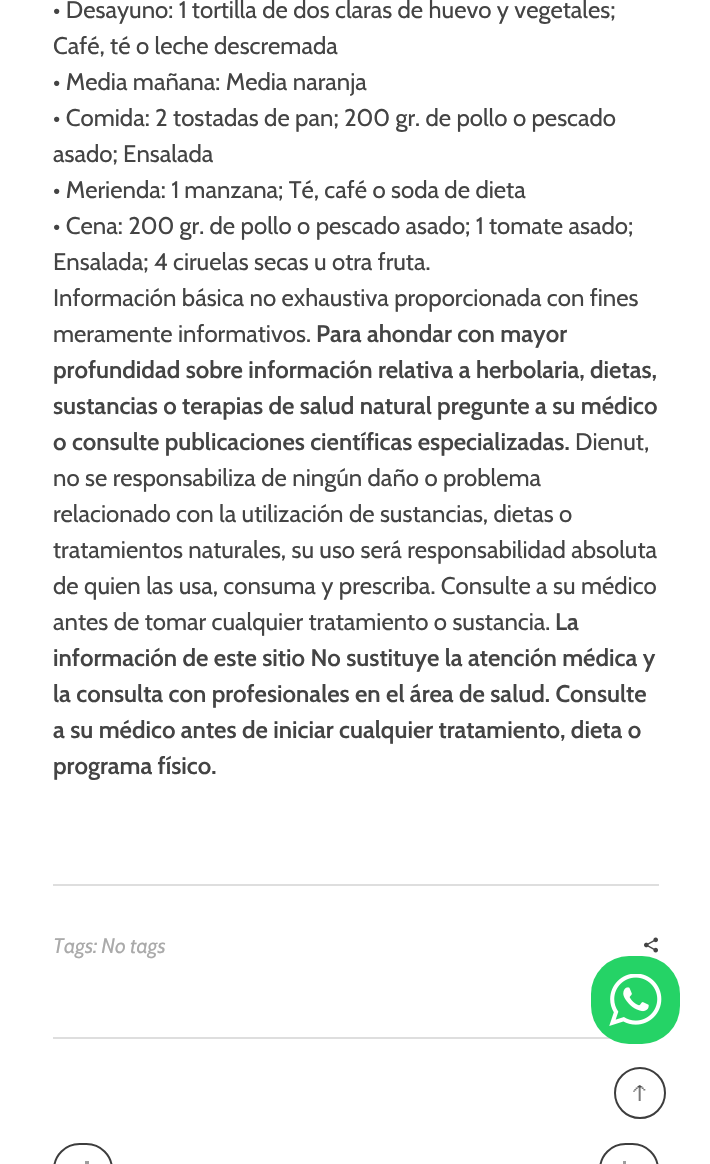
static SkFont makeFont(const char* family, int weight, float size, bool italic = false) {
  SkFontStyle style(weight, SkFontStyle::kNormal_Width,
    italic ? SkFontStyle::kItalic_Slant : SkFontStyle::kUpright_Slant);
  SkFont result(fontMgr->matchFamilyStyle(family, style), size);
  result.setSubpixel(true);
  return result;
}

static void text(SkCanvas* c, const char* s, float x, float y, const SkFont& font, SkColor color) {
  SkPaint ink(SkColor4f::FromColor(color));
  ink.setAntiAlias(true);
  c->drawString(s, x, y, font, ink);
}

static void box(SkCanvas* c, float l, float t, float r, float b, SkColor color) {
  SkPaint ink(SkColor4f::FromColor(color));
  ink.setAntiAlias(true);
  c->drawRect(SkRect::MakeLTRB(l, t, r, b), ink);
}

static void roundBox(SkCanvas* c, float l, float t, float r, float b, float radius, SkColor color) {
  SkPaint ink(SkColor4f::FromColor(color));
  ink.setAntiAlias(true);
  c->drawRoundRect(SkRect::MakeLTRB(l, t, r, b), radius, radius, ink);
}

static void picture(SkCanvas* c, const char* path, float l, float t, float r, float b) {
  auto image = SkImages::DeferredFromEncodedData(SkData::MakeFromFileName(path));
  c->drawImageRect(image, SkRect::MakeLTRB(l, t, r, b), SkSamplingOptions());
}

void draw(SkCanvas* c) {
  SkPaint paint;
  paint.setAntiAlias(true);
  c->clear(0xffffffff);
  SkFont face1 = makeFont("Cabin", 400, 24);
  text(c, "• Desayuno: 1 tortilla de dos claras de huevo y vegetales;", 53, 18, face1, 0xff444444);
  text(c, "Café, té o leche descremada", 53, 54, face1, 0xff444444);
  text(c, "• Media mañana: Media naranja", 53, 90, face1, 0xff444444);
  text(c, "• Comida: 2 tostadas de pan; 200 gr. de pollo o pescado", 53, 126, face1, 0xff444444);
  text(c, "asado; Ensalada", 53, 162, face1, 0xff444444);
  text(c, "• Merienda: 1 manzana; Té, café o soda de dieta", 53, 198, face1, 0xff444444);
  text(c, "• Cena: 200 gr. de pollo o pescado asado; 1 tomate asado;", 53, 234, face1, 0xff444444);
  text(c, "Ensalada; 4 ciruelas secas u otra fruta.", 53, 270, face1, 0xff444444);
  text(c, "Información básica no exhaustiva proporcionada con fines", 53, 306, face1, 0xff444444);
  text(c, "meramente informativos.", 53, 342, face1, 0xff444444);
  SkFont face2 = makeFont("Cabin", 600, 24);
  text(c, "Para ahondar con mayor", 316, 342, face2, 0xff444444);
  text(c, "profundidad sobre información relativa a herbolaria, dietas,", 53, 378, face2, 0xff444444);
  text(c, "sustancias o terapias de salud natural pregunte a su médico", 53, 414, face2, 0xff444444);
  text(c, "o consulte publicaciones científicas especializadas.", 53, 450, face2, 0xff444444);
  text(c, "Dienut,", 575, 450, face1, 0xff444444);
  text(c, "no se responsabiliza de ningún daño o problema", 53, 486, face1, 0xff444444);
  text(c, "relacionado con la utilización de sustancias, dietas o", 53, 522, face1, 0xff444444);
  text(c, "tratamientos naturales, su uso será responsabilidad absoluta", 53, 558, face1, 0xff444444);
  text(c, "de quien las usa, consuma y prescriba. Consulte a su médico", 53, 594, face1, 0xff444444);
  text(c, "antes de tomar cualquier tratamiento o sustancia.", 53, 630, face1, 0xff444444);
  text(c, "La", 555, 630, face2, 0xff444444);
  text(c, "información de este sitio No sustituye la atención médica y", 53, 666, face2, 0xff444444);
  text(c, "la consulta con profesionales en el área de salud. Consulte", 53, 702, face2, 0xff444444);
  text(c, "a su médico antes de iniciar cualquier tratamiento, dieta o", 53, 738, face2, 0xff444444);
  text(c, "programa físico.", 53, 774, face2, 0xff444444);
  box(c, 53, 884, 659, 886, 0xffdedede);
  box(c, 53, 1037, 611, 1039, 0xffdedede);
  SkFont face3 = makeFont("Cabin", 400, 21, true);
  text(c, "Tags: No tags", 53, 953, face3, 0xffaaaaaa);
  picture(c, "img_01.png", 644, 937, 658, 953);
  paint.setStyle(SkPaint::kStroke_Style);
  paint.setStrokeWidth(2);
  paint.setColor(0xff3d3d3d);
  c->drawRoundRect(SkRect::MakeLTRB(54, 1144, 112, 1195), 29, 29, paint);
  box(c, 85, 1161, 89, 1164, 0xff9e9e9e);
  c->drawRoundRect(SkRect::MakeLTRB(600, 1144, 658, 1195), 29, 29, paint);
  box(c, 623, 1161, 626, 1164, 0xff9e9e9e);
  roundBox(c, 591, 956, 680, 1044, 38, 0xff25d366);
  picture(c, "img_02.png", 609, 974, 662, 1026);
  c->drawCircle(640, 1093, 25, paint);
  picture(c, "img_03.png", 633, 1085, 646, 1101);
}
